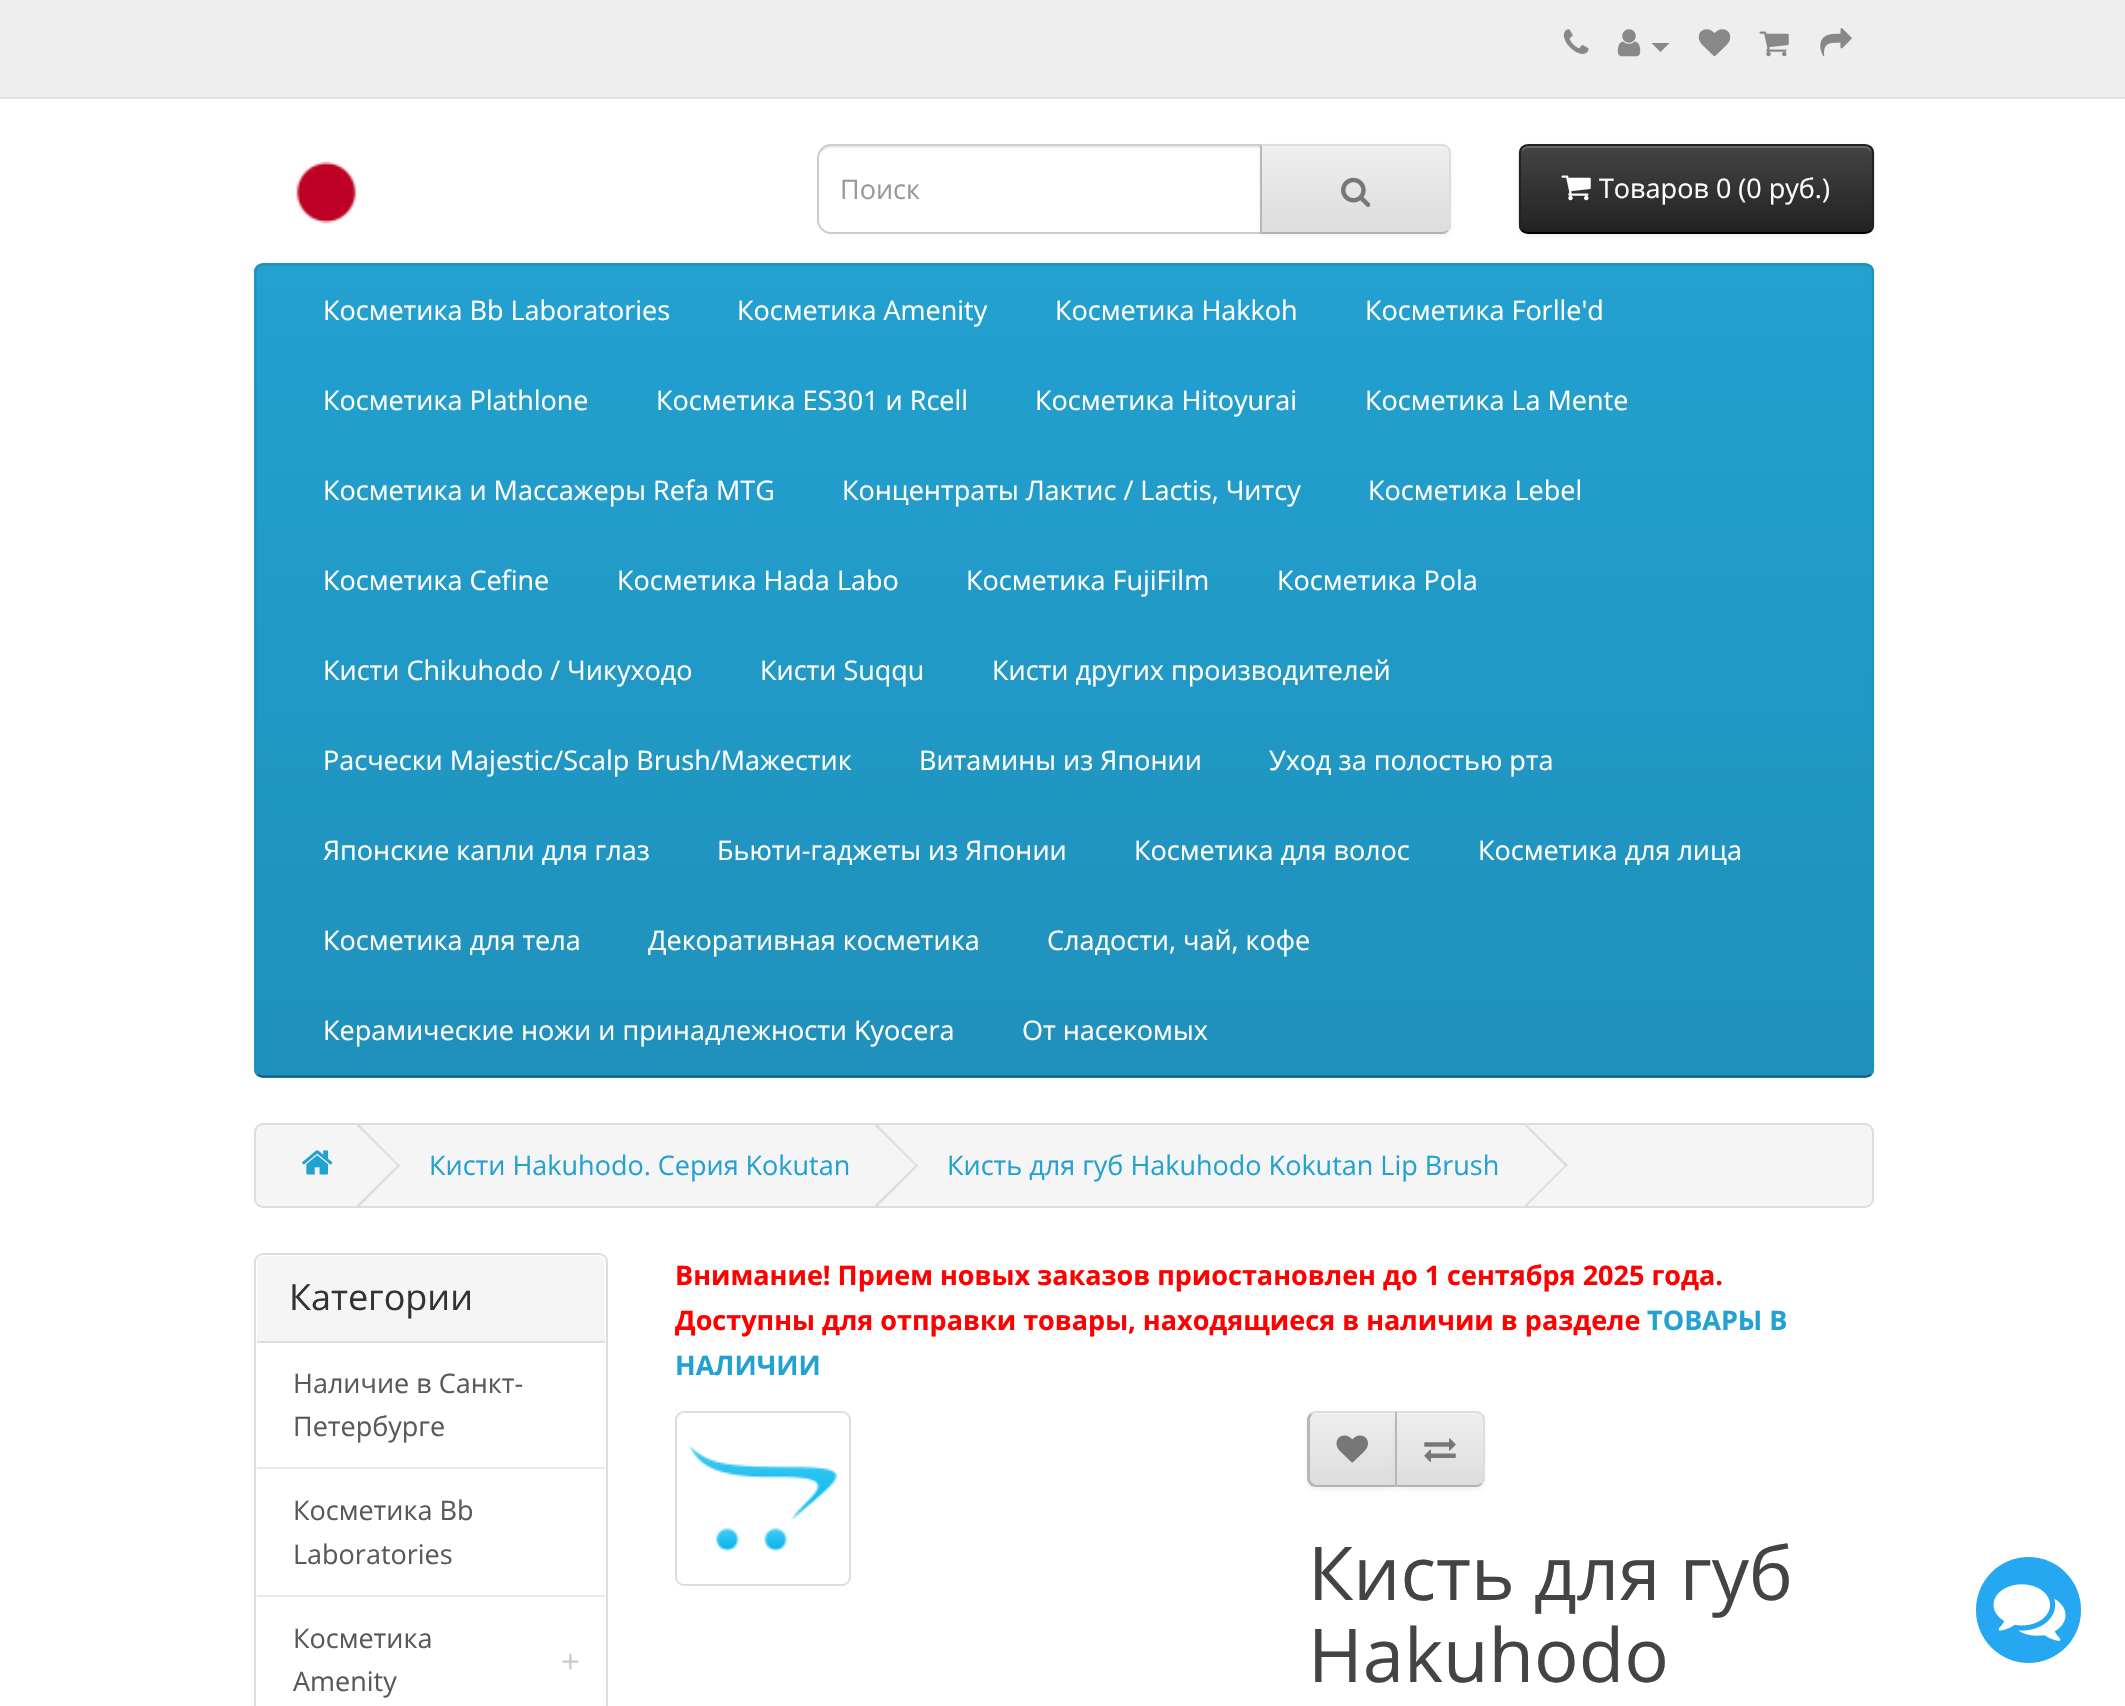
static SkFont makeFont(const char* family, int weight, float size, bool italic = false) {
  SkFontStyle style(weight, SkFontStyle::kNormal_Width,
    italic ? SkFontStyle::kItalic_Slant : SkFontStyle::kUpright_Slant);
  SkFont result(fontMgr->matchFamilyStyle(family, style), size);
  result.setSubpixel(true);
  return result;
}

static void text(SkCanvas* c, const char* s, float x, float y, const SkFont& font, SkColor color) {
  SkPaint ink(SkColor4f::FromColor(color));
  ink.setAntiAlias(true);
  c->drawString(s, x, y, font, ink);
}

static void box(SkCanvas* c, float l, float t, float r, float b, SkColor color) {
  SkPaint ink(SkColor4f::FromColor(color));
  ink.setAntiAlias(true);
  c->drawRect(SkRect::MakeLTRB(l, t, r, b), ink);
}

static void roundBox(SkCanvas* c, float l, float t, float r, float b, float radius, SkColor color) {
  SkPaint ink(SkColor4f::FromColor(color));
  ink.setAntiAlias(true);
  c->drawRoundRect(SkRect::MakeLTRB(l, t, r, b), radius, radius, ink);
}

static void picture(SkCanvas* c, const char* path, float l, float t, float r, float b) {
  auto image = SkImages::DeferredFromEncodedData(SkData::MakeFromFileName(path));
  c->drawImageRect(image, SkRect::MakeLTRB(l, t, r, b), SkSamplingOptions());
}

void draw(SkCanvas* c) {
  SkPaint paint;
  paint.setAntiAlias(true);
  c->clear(0xffffffff);
  box(c, 0, 0, 2125, 97, 0xffeeeeee);
  box(c, 0, 97, 2125, 99, 0xffe2e2e2);
  picture(c, "img_01.png", 1563, 29, 1589, 54);
  picture(c, "img_02.png", 1617, 29, 1641, 57);
  paint.setColor(0xff888888);
  c->drawPath(SkPathBuilder().moveTo(1651.5f, 43).lineTo(1669.5f, 43).lineTo(1660.5f, 52).close().detach(), paint);
  picture(c, "img_03.png", 1698, 29, 1731, 57);
  picture(c, "img_04.png", 1759, 31, 1789, 57);
  picture(c, "img_05.png", 1820, 28, 1852, 57);
  picture(c, "img_06.png", 296, 161, 357, 224);
  paint.setColor(0xffececec);
  c->drawPath(SkPathBuilder().moveTo(830, 148).lineTo(1260, 148).lineTo(1260, 146).lineTo(830, 146).cubicTo(822, 146, 819, 153, 819, 160).cubicTo(819, 154, 824, 148, 830, 148).close().detach(), paint);
  paint.setStyle(SkPaint::kStroke_Style);
  paint.setStrokeWidth(2);
  paint.setColor(0xffcccccc);
  c->drawPath(SkPathBuilder().moveTo(831, 145).lineTo(1261, 145).lineTo(1261, 233).lineTo(831, 233).cubicTo(824, 233, 818, 227, 818, 220).lineTo(818, 158).cubicTo(818, 151, 824, 145, 831, 145).close().detach(), paint);
  SkFont face1 = makeFont("Open Sans", 400, 27);
  text(c, "Поиск", 840, 199, face1, 0xff999999);
  paint.setStyle(SkPaint::kFill_Style);
  paint.setColor(0x0d000000);
  paint.setMaskFilter(SkMaskFilter::MakeBlur(kNormal_SkBlurStyle, 2));
  c->drawRoundRect(SkRect::MakeLTRB(1260, 146, 1451, 236), 9, 9, paint);
  paint.setMaskFilter(nullptr);
  c->save();
  c->clipPath(SkPathBuilder().moveTo(1260, 144).lineTo(1442, 144).cubicTo(1447, 144, 1451, 148, 1451, 153).lineTo(1451, 225).cubicTo(1451, 230, 1447, 234, 1442, 234).lineTo(1260, 234).close().detach(), true);
  {
    const SkColor colors[] = {0xffeeeeee, 0xffdddddd};
    const float stops[] = {0, 1};
    const SkPoint ends[] = {{1356, 146}, {1356, 232}};
    paint.setShader(SkGradientShader::MakeLinear(ends, colors, stops, 2, SkTileMode::kClamp));
    paint.setAlpha(255);
  }
  c->drawRect(SkRect::MakeLTRB(1262, 146, 1451, 232), paint);
  c->restore();
  paint.setShader(nullptr);
  paint.setColor(0xfff1f1f1);
  c->drawPath(SkPathBuilder().moveTo(1262, 148).lineTo(1442, 148).cubicTo(1446, 148, 1449, 152, 1449, 155).lineTo(1449, 153).cubicTo(1449, 149, 1446, 146, 1442, 146).lineTo(1262, 146).close().detach(), paint);
  paint.setColor(0xffdddddd);
  c->drawPath(SkPathBuilder().moveTo(1260, 144).lineTo(1262, 146).lineTo(1442, 146).cubicTo(1444, 146, 1446, 147, 1447, 148).lineTo(1448, 147).cubicTo(1447, 145, 1445, 144, 1442, 144).close().detach(), paint);
  c->drawPath(SkPathBuilder().moveTo(1448, 147).cubicTo(1450, 148, 1451, 151, 1451, 153).lineTo(1451, 225).cubicTo(1451, 227, 1450, 230, 1448, 231).lineTo(1447, 230).cubicTo(1448, 229, 1449, 227, 1449, 225).lineTo(1449, 153).cubicTo(1449, 151, 1448, 149, 1447, 148).close().detach(), paint);
  paint.setColor(0xffb3b3b3);
  c->drawPath(SkPathBuilder().moveTo(1442, 234).cubicTo(1445, 234, 1447, 233, 1448, 231).lineTo(1447, 230).cubicTo(1446, 231, 1444, 232, 1442, 232).lineTo(1262, 232).lineTo(1260, 234).close().detach(), paint);
  paint.setColor(0xffb7b7b7);
  c->drawPath(SkPathBuilder().moveTo(1260, 144).lineTo(1260, 234).lineTo(1262, 232).lineTo(1262, 146).close().detach(), paint);
  picture(c, "img_07.png", 1341, 177, 1371, 207);
  paint.setColor(0x0d000000);
  paint.setMaskFilter(SkMaskFilter::MakeBlur(kNormal_SkBlurStyle, 2));
  c->drawRoundRect(SkRect::MakeLTRB(1519, 146, 1874, 236), 9, 9, paint);
  paint.setMaskFilter(nullptr);
  c->save();
  c->clipPath(SkPathBuilder().moveTo(1528, 144).lineTo(1865, 144).cubicTo(1870, 144, 1874, 148, 1874, 153).lineTo(1874, 225).cubicTo(1874, 230, 1870, 234, 1865, 234).lineTo(1528, 234).cubicTo(1523, 234, 1519, 230, 1519, 225).lineTo(1519, 153).cubicTo(1519, 148, 1523, 144, 1528, 144).close().detach(), true);
  {
    const SkColor colors[] = {0xff444444, 0xff222222};
    const float stops[] = {0, 1};
    const SkPoint ends[] = {{1697, 146}, {1697, 232}};
    paint.setShader(SkGradientShader::MakeLinear(ends, colors, stops, 2, SkTileMode::kClamp));
    paint.setAlpha(255);
  }
  c->drawRect(SkRect::MakeLTRB(1519, 146, 1874, 232), paint);
  c->restore();
  paint.setShader(nullptr);
  paint.setColor(0xff696969);
  c->drawPath(SkPathBuilder().moveTo(1528, 148).lineTo(1865, 148).cubicTo(1869, 148, 1872, 152, 1872, 155).cubicTo(1872, 151, 1870, 146, 1865, 146).lineTo(1527, 146).cubicTo(1522, 147, 1521, 151, 1521, 155).cubicTo(1521, 152, 1524, 148, 1528, 148).close().detach(), paint);
  paint.setStyle(SkPaint::kStroke_Style);
  paint.setStrokeWidth(2.2f);
  paint.setColor(0xff000000);
  c->drawPath(SkPathBuilder().moveTo(1871, 230.5f).cubicTo(1869.5f, 232, 1867.5f, 233, 1865, 233).lineTo(1528, 233).cubicTo(1525.5f, 233, 1523.5f, 232, 1522, 230.5f).detach(), paint);
  paint.setColor(0xff222222);
  c->drawPath(SkPathBuilder().moveTo(1522, 230.5f).cubicTo(1520.5f, 229, 1520, 227, 1520, 225).lineTo(1520, 153).cubicTo(1520, 151, 1520.5f, 149, 1522, 147.5f).cubicTo(1523.5f, 146, 1525.5f, 145, 1528, 145).lineTo(1865, 145).cubicTo(1867.5f, 145, 1869.5f, 146, 1871, 147.5f).cubicTo(1872.5f, 149, 1873, 151, 1873, 153).lineTo(1873, 225).cubicTo(1873, 227, 1872.5f, 229, 1871, 230.5f).detach(), paint);
  picture(c, "img_08.png", 1561, 175, 1591, 201);
  text(c, "Товаров 0 (0 руб.)", 1599, 198, face1, 0xffffffff);
  roundBox(c, 254, 263, 1874, 1078, 9, 0xff229ac8);
  c->save();
  c->clipPath(SkPathBuilder().moveTo(263, 263).lineTo(1865, 263).cubicTo(1870, 263, 1874, 267, 1874, 272).lineTo(1874, 1069).cubicTo(1874, 1074, 1870, 1078, 1865, 1078).lineTo(263, 1078).cubicTo(258, 1078, 254, 1074, 254, 1069).lineTo(254, 272).cubicTo(254, 267, 258, 263, 263, 263).close().detach(), true);
  paint.setStyle(SkPaint::kFill_Style);
  {
    const SkColor colors[] = {0xff23a1d1, 0xff1f90bb};
    const float stops[] = {0, 1};
    const SkPoint ends[] = {{1064, 265}, {1064, 1076}};
    paint.setShader(SkGradientShader::MakeLinear(ends, colors, stops, 2, SkTileMode::kClamp));
    paint.setAlpha(255);
  }
  c->drawRect(SkRect::MakeLTRB(254, 266, 1874, 1076), paint);
  c->restore();
  paint.setStyle(SkPaint::kStroke_Style);
  paint.setShader(nullptr);
  paint.setColor(0xff145e7a);
  c->drawPath(SkPathBuilder().moveTo(1871, 1074.5f).cubicTo(1869.5f, 1076, 1867.5f, 1076.5f, 1865, 1076.5f).lineTo(263, 1076.5f).cubicTo(261, 1076.5f, 259, 1076, 257.5f, 1074.5f).detach(), paint);
  paint.setColor(0xff1f90bb);
  c->drawPath(SkPathBuilder().moveTo(257.5f, 1074.5f).cubicTo(256, 1073, 255.5f, 1071, 255.5f, 1069).lineTo(255.5f, 272).cubicTo(255.5f, 270, 256, 268, 257.5f, 266.5f).cubicTo(259, 265, 261, 264.5f, 263, 264.5f).lineTo(1865, 264.5f).cubicTo(1867.5f, 264.5f, 1869.5f, 265, 1871, 266.5f).cubicTo(1872.5f, 268, 1873, 270, 1873, 272).lineTo(1873, 1069).cubicTo(1873, 1071, 1872.5f, 1073, 1871, 1074.5f).detach(), paint);
  text(c, "Косметика Bb Laboratories", 323, 320, face1, 0xffffffff);
  text(c, "Косметика Amenity", 737, 320, face1, 0xffffffff);
  text(c, "Косметика Hakkoh", 1055, 320, face1, 0xffffffff);
  text(c, "Косметика Forlle'd", 1365, 320, face1, 0xffffffff);
  text(c, "Косметика Plathlone", 323, 410, face1, 0xffffffff);
  text(c, "Косметика ES301 и Rcell", 656, 410, face1, 0xffffffff);
  text(c, "Косметика Hitoyurai", 1035, 410, face1, 0xffffffff);
  text(c, "Косметика La Mente", 1365, 410, face1, 0xffffffff);
  text(c, "Косметика и Массажеры Refa MTG", 323, 500, face1, 0xffffffff);
  text(c, "Концентраты Лактис / Lactis, Читсу", 842, 500, face1, 0xffffffff);
  text(c, "Косметика Lebel", 1368, 500, face1, 0xffffffff);
  text(c, "Косметика Cefine", 323, 590, face1, 0xffffffff);
  text(c, "Косметика Hada Labo", 617, 590, face1, 0xffffffff);
  text(c, "Косметика FujiFilm", 966, 590, face1, 0xffffffff);
  text(c, "Косметика Pola", 1277, 590, face1, 0xffffffff);
  text(c, "Кисти Chikuhodo / Чикуходо", 323, 680, face1, 0xffffffff);
  text(c, "Кисти Suqqu", 760, 680, face1, 0xffffffff);
  text(c, "Кисти других производителей", 992, 680, face1, 0xffffffff);
  text(c, "Расчески Majestic/Scalp Brush/Мажестик", 323, 770, face1, 0xffffffff);
  text(c, "Витамины из Японии", 919, 770, face1, 0xffffffff);
  text(c, "Уход за полостью рта", 1269, 770, face1, 0xffffffff);
  text(c, "Японские капли для глаз", 323, 860, face1, 0xffffffff);
  text(c, "Бьюти-гаджеты из Японии", 717, 860, face1, 0xffffffff);
  text(c, "Косметика для волос", 1134, 860, face1, 0xffffffff);
  text(c, "Косметика для лица", 1478, 860, face1, 0xffffffff);
  text(c, "Косметика для тела", 323, 950, face1, 0xffffffff);
  text(c, "Декоративная косметика", 648, 950, face1, 0xffffffff);
  text(c, "Сладости, чай, кофе", 1047, 950, face1, 0xffffffff);
  text(c, "Керамические ножи и принадлежности Kyocera", 323, 1040, face1, 0xffffffff);
  text(c, "От насекомых", 1022, 1040, face1, 0xffffffff);
  paint.setStyle(SkPaint::kFill_Style);
  paint.setColor(0xfff5f5f5);
  c->drawRoundRect(SkRect::MakeLTRB(255, 1124, 1873, 1207), 8, 8, paint);
  paint.setStyle(SkPaint::kStroke_Style);
  paint.setStrokeWidth(2);
  paint.setColor(0xffdddddd);
  c->drawRoundRect(SkRect::MakeLTRB(255, 1124, 1873, 1207), 8, 8, paint);
  picture(c, "img_09.png", 302, 1150, 333, 1175);
  paint.setStyle(SkPaint::kFill_Style);
  c->drawPath(SkPathBuilder().moveTo(357, 1126).lineTo(359, 1124).lineTo(400, 1166).lineTo(399, 1167).close().detach(), paint);
  c->drawPath(SkPathBuilder().moveTo(357, 1205).lineTo(399, 1164).lineTo(400, 1166).lineTo(359, 1207).close().detach(), paint);
  text(c, "Кисти Hakuhodo. Серия Kokutan", 429, 1175, face1, 0xff23a1d1);
  c->drawPath(SkPathBuilder().moveTo(875, 1126).lineTo(877, 1124).lineTo(918, 1166).lineTo(917, 1167).close().detach(), paint);
  c->drawPath(SkPathBuilder().moveTo(875, 1205).lineTo(917, 1164).lineTo(918, 1166).lineTo(877, 1207).close().detach(), paint);
  text(c, "Кисть для губ Hakuhodo Kokutan Lip Brush", 947, 1175, face1, 0xff23a1d1);
  c->drawPath(SkPathBuilder().moveTo(1525, 1126).lineTo(1526, 1124).lineTo(1568, 1165).lineTo(1566, 1167).close().detach(), paint);
  c->drawPath(SkPathBuilder().moveTo(1525, 1205).lineTo(1566, 1164).lineTo(1568, 1165).lineTo(1526, 1207).close().detach(), paint);
  paint.setStyle(SkPaint::kStroke_Style);
  c->drawRoundRect(SkRect::MakeLTRB(255, 1254, 607, 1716), 8, 8, paint);
  paint.setStyle(SkPaint::kFill_Style);
  paint.setColor(0xfff5f5f5);
  c->drawPath(SkPathBuilder().moveTo(264, 1256).lineTo(598, 1256).cubicTo(602, 1256, 605, 1259, 605, 1263).lineTo(605, 1343).lineTo(257, 1343).lineTo(257, 1263).cubicTo(257, 1259, 260, 1256, 264, 1256).close().detach(), paint);
  box(c, 257, 1341, 605, 1343, 0xffdddddd);
  SkFont face2 = makeFont("Open Sans", 400, 36);
  text(c, "Категории", 289, 1310, face2, 0xff333333);
  text(c, "Наличие в Санкт-", 293, 1393, face1, 0xff595959);
  text(c, "Петербурге", 293, 1436, face1, 0xff595959);
  box(c, 257, 1467, 605, 1469, 0xffe9e9e9);
  text(c, "Косметика Bb", 293, 1520, face1, 0xff595959);
  text(c, "Laboratories", 293, 1564, face1, 0xff595959);
  box(c, 257, 1595, 605, 1597, 0xffe9e9e9);
  text(c, "Косметика", 293, 1648, face1, 0xff595959);
  text(c, "Amenity", 293, 1691, face1, 0xff595959);
  picture(c, "img_10.png", 562, 1653, 579, 1670);
  SkFont face3 = makeFont("Open Sans", 700, 27);
  text(c, "Внимание! Прием новых заказов приостановлен до 1 сентября 2025 года.", 675, 1285, face3, 0xffff0000);
  text(c, "Доступны для отправки товары, находящиеся в наличии в разделе", 675, 1330, face3, 0xffff0000);
  text(c, "ТОВАРЫ В", 1647, 1330, face3, 0xff23a1d1);
  text(c, "НАЛИЧИИ", 675, 1375, face3, 0xff23a1d1);
  paint.setStyle(SkPaint::kStroke_Style);
  paint.setColor(0xffdddddd);
  c->drawRoundRect(SkRect::MakeLTRB(676, 1412, 850, 1585), 8, 8, paint);
  picture(c, "img_11.png", 688, 1444, 837, 1552);
  paint.setStyle(SkPaint::kFill_Style);
  paint.setColor(0x0d000000);
  paint.setMaskFilter(SkMaskFilter::MakeBlur(kNormal_SkBlurStyle, 2));
  c->drawRoundRect(SkRect::MakeLTRB(1307, 1413, 1397, 1490), 9, 9, paint);
  paint.setMaskFilter(nullptr);
  c->save();
  c->clipPath(SkPathBuilder().moveTo(1316, 1411).lineTo(1397, 1411).lineTo(1397, 1487).lineTo(1316, 1487).cubicTo(1311, 1487, 1307, 1483, 1307, 1478).lineTo(1307, 1420).cubicTo(1307, 1415, 1311, 1411, 1316, 1411).close().detach(), true);
  {
    const SkColor colors[] = {0xffeeeeee, 0xffdddddd};
    const float stops[] = {0, 1};
    const SkPoint ends[] = {{1352, 1413}, {1352, 1485}};
    paint.setShader(SkGradientShader::MakeLinear(ends, colors, stops, 2, SkTileMode::kClamp));
    paint.setAlpha(255);
  }
  c->drawRect(SkRect::MakeLTRB(1307, 1413, 1395, 1485), paint);
  c->restore();
  paint.setShader(nullptr);
  paint.setColor(0xfff1f1f1);
  c->drawPath(SkPathBuilder().moveTo(1316, 1415).lineTo(1395, 1415).lineTo(1395, 1413).lineTo(1317, 1413).cubicTo(1313, 1413, 1310, 1416, 1310, 1420).lineTo(1310, 1422).cubicTo(1310, 1418, 1313, 1415, 1316, 1415).close().detach(), paint);
  paint.setColor(0xffdddddd);
  c->drawPath(SkPathBuilder().moveTo(1316, 1411).cubicTo(1314, 1411, 1311, 1412, 1310, 1413).lineTo(1312, 1415).lineTo(1315, 1413).lineTo(1395, 1413).lineTo(1397, 1411).close().detach(), paint);
  paint.setColor(0xffb3b3b3);
  c->drawPath(SkPathBuilder().moveTo(1397, 1487).lineTo(1395, 1485).lineTo(1315, 1485).lineTo(1312, 1483).lineTo(1310, 1485).cubicTo(1311, 1486, 1314, 1487, 1316, 1487).close().detach(), paint);
  paint.setColor(0xffb7b7b7);
  c->drawPath(SkPathBuilder().moveTo(1307, 1418).cubicTo(1308, 1416, 1309, 1415, 1310, 1413).lineTo(1312, 1415).cubicTo(1311, 1416, 1310, 1418, 1310, 1420).lineTo(1310, 1478).cubicTo(1310, 1480, 1311, 1482, 1312, 1483).lineTo(1310, 1485).cubicTo(1309, 1483, 1308, 1482, 1307, 1480).close().detach(), paint);
  picture(c, "img_12.png", 1336, 1435, 1368, 1463);
  paint.setColor(0x0d000000);
  paint.setMaskFilter(SkMaskFilter::MakeBlur(kNormal_SkBlurStyle, 2));
  c->drawRoundRect(SkRect::MakeLTRB(1395, 1413, 1485, 1490), 9, 9, paint);
  paint.setMaskFilter(nullptr);
  paint.setColor(0xffe7e7e7);
  c->drawPath(SkPathBuilder().moveTo(1395, 1411).lineTo(1476, 1411).cubicTo(1481, 1411, 1485, 1415, 1485, 1420).lineTo(1485, 1478).cubicTo(1485, 1483, 1481, 1487, 1476, 1487).lineTo(1395, 1487).close().detach(), paint);
  c->save();
  c->clipPath(SkPathBuilder().moveTo(1395, 1411).lineTo(1476, 1411).cubicTo(1481, 1411, 1485, 1415, 1485, 1420).lineTo(1485, 1478).cubicTo(1485, 1483, 1481, 1487, 1476, 1487).lineTo(1395, 1487).close().detach(), true);
  {
    const SkColor colors[] = {0xffeeeeee, 0xffdddddd};
    const float stops[] = {0, 1};
    const SkPoint ends[] = {{1440, 1413}, {1440, 1485}};
    paint.setShader(SkGradientShader::MakeLinear(ends, colors, stops, 2, SkTileMode::kClamp));
    paint.setAlpha(255);
  }
  c->drawRect(SkRect::MakeLTRB(1397, 1413, 1485, 1485), paint);
  c->restore();
  paint.setShader(nullptr);
  paint.setColor(0xfff1f1f1);
  c->drawPath(SkPathBuilder().moveTo(1397, 1415).lineTo(1476, 1415).cubicTo(1480, 1415, 1483, 1418, 1483, 1422).lineTo(1483, 1420).cubicTo(1483, 1416, 1480, 1413, 1476, 1413).lineTo(1397, 1413).close().detach(), paint);
  paint.setColor(0xffdddddd);
  c->drawPath(SkPathBuilder().moveTo(1482, 1414).cubicTo(1481, 1412, 1478, 1411, 1476, 1411).lineTo(1395, 1411).lineTo(1397, 1413).lineTo(1476, 1413).cubicTo(1478, 1413, 1480, 1414, 1481, 1415).close().detach(), paint);
  c->drawPath(SkPathBuilder().moveTo(1482, 1414).cubicTo(1484, 1415, 1485, 1417, 1485, 1420).lineTo(1485, 1478).cubicTo(1485, 1481, 1484, 1483, 1482, 1484).lineTo(1481, 1483).cubicTo(1482, 1482, 1483, 1480, 1483, 1478).lineTo(1483, 1420).cubicTo(1483, 1418, 1482, 1416, 1481, 1415).close().detach(), paint);
  paint.setColor(0xffb3b3b3);
  c->drawPath(SkPathBuilder().moveTo(1482, 1484).cubicTo(1481, 1486, 1478, 1487, 1476, 1487).lineTo(1395, 1487).lineTo(1397, 1485).lineTo(1476, 1485).cubicTo(1478, 1485, 1480, 1484, 1481, 1483).close().detach(), paint);
  paint.setColor(0xffb7b7b7);
  c->drawPath(SkPathBuilder().moveTo(1397, 1413).lineTo(1397, 1485).lineTo(1395, 1487).lineTo(1395, 1411).close().detach(), paint);
  picture(c, "img_13.png", 1424, 1438, 1456, 1462);
  SkFont face4 = makeFont("Open Sans", 400, 74.25f);
  text(c, "Кисть для губ", 1308, 1600, face4, 0xff444444);
  text(c, "Hakuhodo", 1308, 1682, face4, 0xff444444);
  roundBox(c, 1976, 1557, 2081, 1663, 52.5f, 0xff25a7f2);
  picture(c, "img_14.png", 1993, 1584, 2066, 1641);
}
